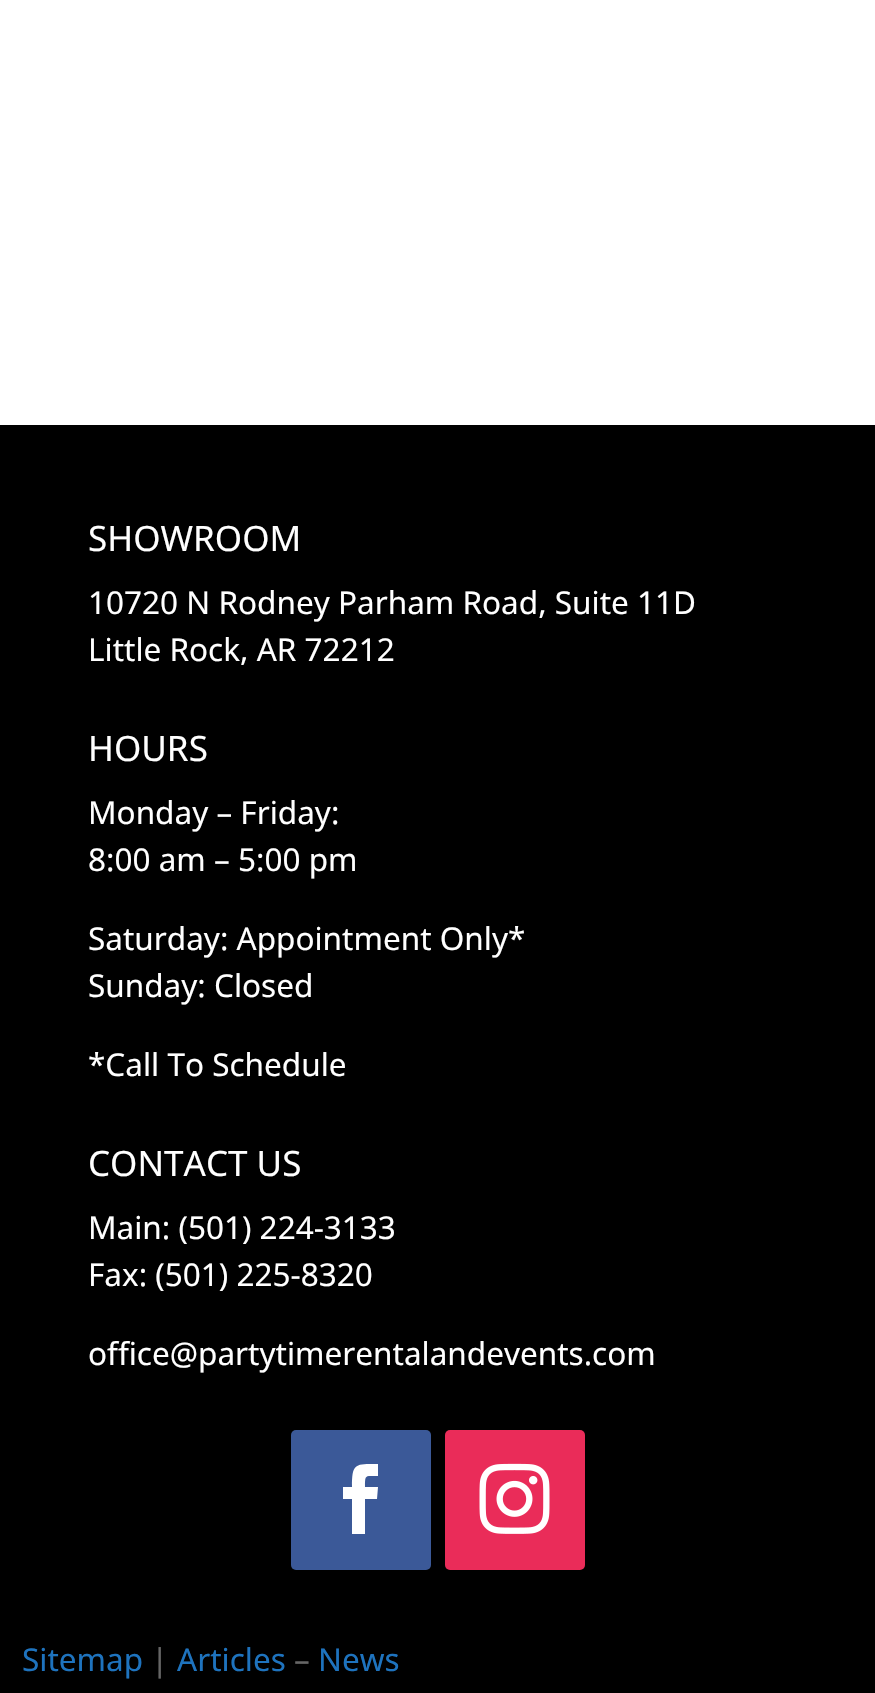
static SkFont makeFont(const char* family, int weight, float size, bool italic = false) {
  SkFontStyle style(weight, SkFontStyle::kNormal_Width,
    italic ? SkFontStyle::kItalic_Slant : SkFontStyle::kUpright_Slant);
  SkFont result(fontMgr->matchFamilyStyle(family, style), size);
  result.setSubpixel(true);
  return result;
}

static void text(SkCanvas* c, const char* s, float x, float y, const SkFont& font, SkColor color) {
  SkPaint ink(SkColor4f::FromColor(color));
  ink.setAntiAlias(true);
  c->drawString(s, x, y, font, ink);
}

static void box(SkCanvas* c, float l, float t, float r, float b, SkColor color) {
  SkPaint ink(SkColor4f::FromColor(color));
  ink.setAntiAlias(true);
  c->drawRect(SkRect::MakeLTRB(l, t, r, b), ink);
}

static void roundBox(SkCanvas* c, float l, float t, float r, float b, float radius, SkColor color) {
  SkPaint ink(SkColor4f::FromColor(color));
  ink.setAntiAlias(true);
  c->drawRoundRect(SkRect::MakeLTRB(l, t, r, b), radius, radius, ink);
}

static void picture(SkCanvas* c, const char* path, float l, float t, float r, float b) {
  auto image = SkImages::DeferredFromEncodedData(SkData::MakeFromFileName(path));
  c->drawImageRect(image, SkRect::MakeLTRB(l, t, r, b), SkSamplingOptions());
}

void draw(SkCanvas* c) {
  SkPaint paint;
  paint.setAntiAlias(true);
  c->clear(0xffffffff);
  box(c, 0, 425, 875, 1693, 0xff000000);
  SkFont face1 = makeFont("Noto Sans", 400, 35);
  text(c, "SHOWROOM", 88, 551, face1, 0xffffffff);
  SkFont face2 = makeFont("Noto Sans", 400, 31.5f);
  text(c, "10720 N Rodney Parham Road, Suite 11D", 88, 614, face2, 0xffffffff);
  text(c, "Little Rock, AR 72212", 88, 661, face2, 0xffffffff);
  text(c, "HOURS", 88, 761, face1, 0xffffffff);
  text(c, "Monday – Friday:", 88, 824, face2, 0xffffffff);
  text(c, "8:00 am – 5:00 pm", 88, 871, face2, 0xffffffff);
  text(c, "Saturday: Appointment Only*", 88, 950, face2, 0xffffffff);
  text(c, "Sunday: Closed", 88, 997, face2, 0xffffffff);
  text(c, "*Call To Schedule", 88, 1076, face2, 0xffffffff);
  text(c, "CONTACT US", 88, 1176, face1, 0xffffffff);
  text(c, "Main: (501) 224-3133", 88, 1239, face2, 0xffffffff);
  text(c, "Fax: (501) 225-8320", 88, 1286, face2, 0xffffffff);
  text(c, "office@partytimerentalandevents.com", 88, 1365, face2, 0xffffffff);
  roundBox(c, 291, 1430, 431, 1570, 5, 0xff3b5998);
  paint.setColor(0xffffffff);
  c->drawPath(SkPathBuilder().moveTo(352, 1534).lineTo(365, 1534).lineTo(365, 1499).lineTo(377, 1499).lineTo(378, 1487).lineTo(365, 1487).cubicTo(365, 1474, 365, 1476, 378, 1476).lineTo(378, 1464).cubicTo(355, 1464, 352, 1463, 352, 1487).lineTo(343, 1487).lineTo(343, 1499).lineTo(352, 1499).close().detach(), paint);
  roundBox(c, 445, 1430, 585, 1570, 5, 0xffea2c59);
  picture(c, "img_01.png", 479, 1463, 550, 1534);
  text(c, "Sitemap", 22, 1671, face2, 0xff1e73be);
  text(c, "|", 151, 1671, face2, 0xff666666);
  text(c, "Articles", 177, 1671, face2, 0xff1e73be);
  text(c, "–", 294, 1671, face2, 0xff666666);
  text(c, "News", 318, 1671, face2, 0xff1e73be);
}
